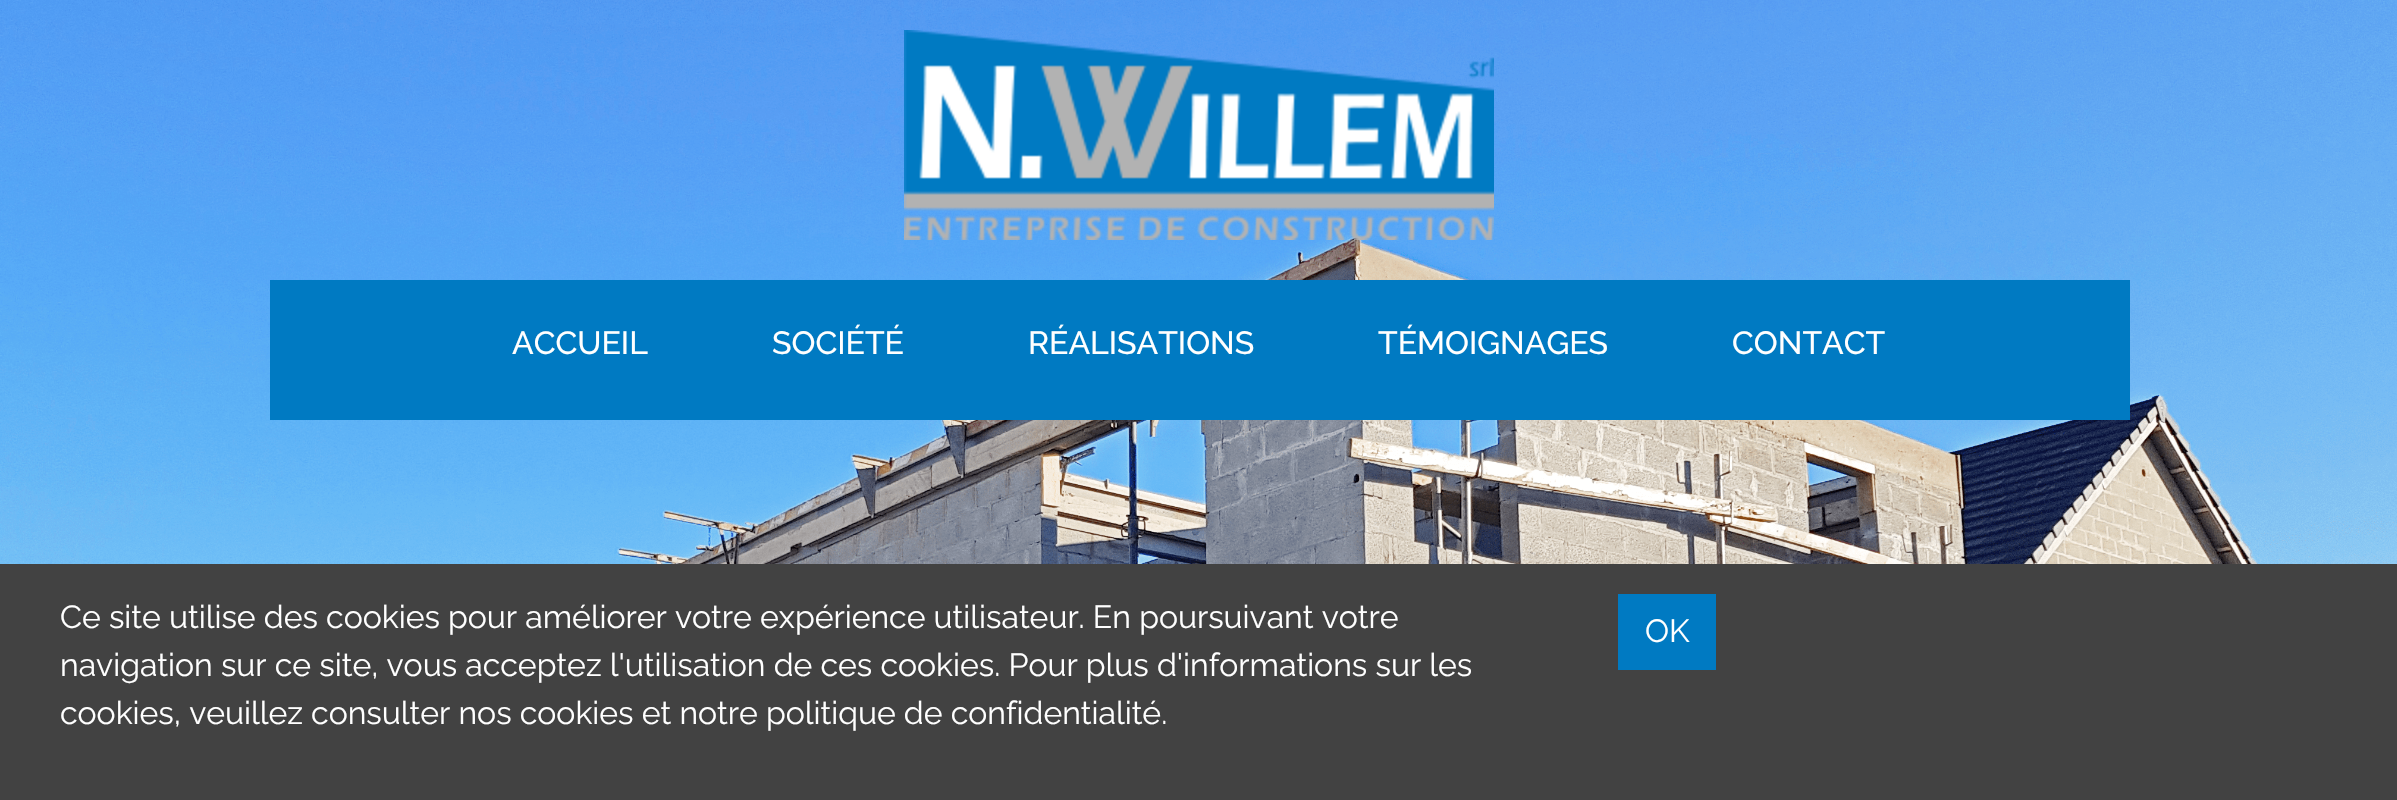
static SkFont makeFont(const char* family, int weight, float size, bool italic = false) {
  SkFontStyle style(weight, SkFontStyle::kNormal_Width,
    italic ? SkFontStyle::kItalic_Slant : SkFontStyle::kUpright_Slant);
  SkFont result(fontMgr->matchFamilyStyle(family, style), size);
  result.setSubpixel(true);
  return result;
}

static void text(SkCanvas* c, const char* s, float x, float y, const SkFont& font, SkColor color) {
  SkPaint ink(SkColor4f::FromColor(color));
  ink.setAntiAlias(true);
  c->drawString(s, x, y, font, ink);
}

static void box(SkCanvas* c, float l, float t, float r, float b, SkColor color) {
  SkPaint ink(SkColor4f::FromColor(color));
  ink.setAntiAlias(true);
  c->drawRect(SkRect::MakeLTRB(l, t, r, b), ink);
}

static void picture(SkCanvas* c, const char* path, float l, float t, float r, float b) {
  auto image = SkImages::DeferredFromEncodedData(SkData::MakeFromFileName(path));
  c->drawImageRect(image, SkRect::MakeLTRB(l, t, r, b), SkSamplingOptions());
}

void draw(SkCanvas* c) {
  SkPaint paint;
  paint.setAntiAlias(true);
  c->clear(0xffffffff);
  picture(c, "img_01.png", 0, 0, 2397, 564);
  picture(c, "img_02.png", 904, 30, 1494, 240);
  box(c, 270, 280, 2130, 420, 0xff007ac2);
  SkFont face1 = makeFont("Raleway", 500, 32);
  text(c, "ACCUEIL", 512, 354, face1, 0xffffffff);
  text(c, "SOCIÉTÉ", 772, 354, face1, 0xffffffff);
  text(c, "RÉALISATIONS", 1028, 354, face1, 0xffffffff);
  text(c, "TÉMOIGNAGES", 1378, 354, face1, 0xffffffff);
  text(c, "CONTACT", 1732, 354, face1, 0xffffffff);
  box(c, 0, 564, 2397, 800, 0xff424242);
  SkFont face2 = makeFont("Raleway", 400, 32);
  text(c, "Ce site utilise des cookies pour améliorer votre expérience utilisateur. En poursuivant votre", 60, 628, face2, 0xffffffff);
  text(c, "navigation sur ce site, vous acceptez l'utilisation de ces cookies. Pour plus d'informations sur les", 60, 676, face2, 0xffffffff);
  text(c, "cookies, veuillez consulter nos cookies et notre politique de confidentialité.", 60, 724, face2, 0xffffffff);
  box(c, 1618, 594, 1716, 670, 0xff007ac2);
  text(c, "OK", 1645, 642, face2, 0xffffffff);
}
